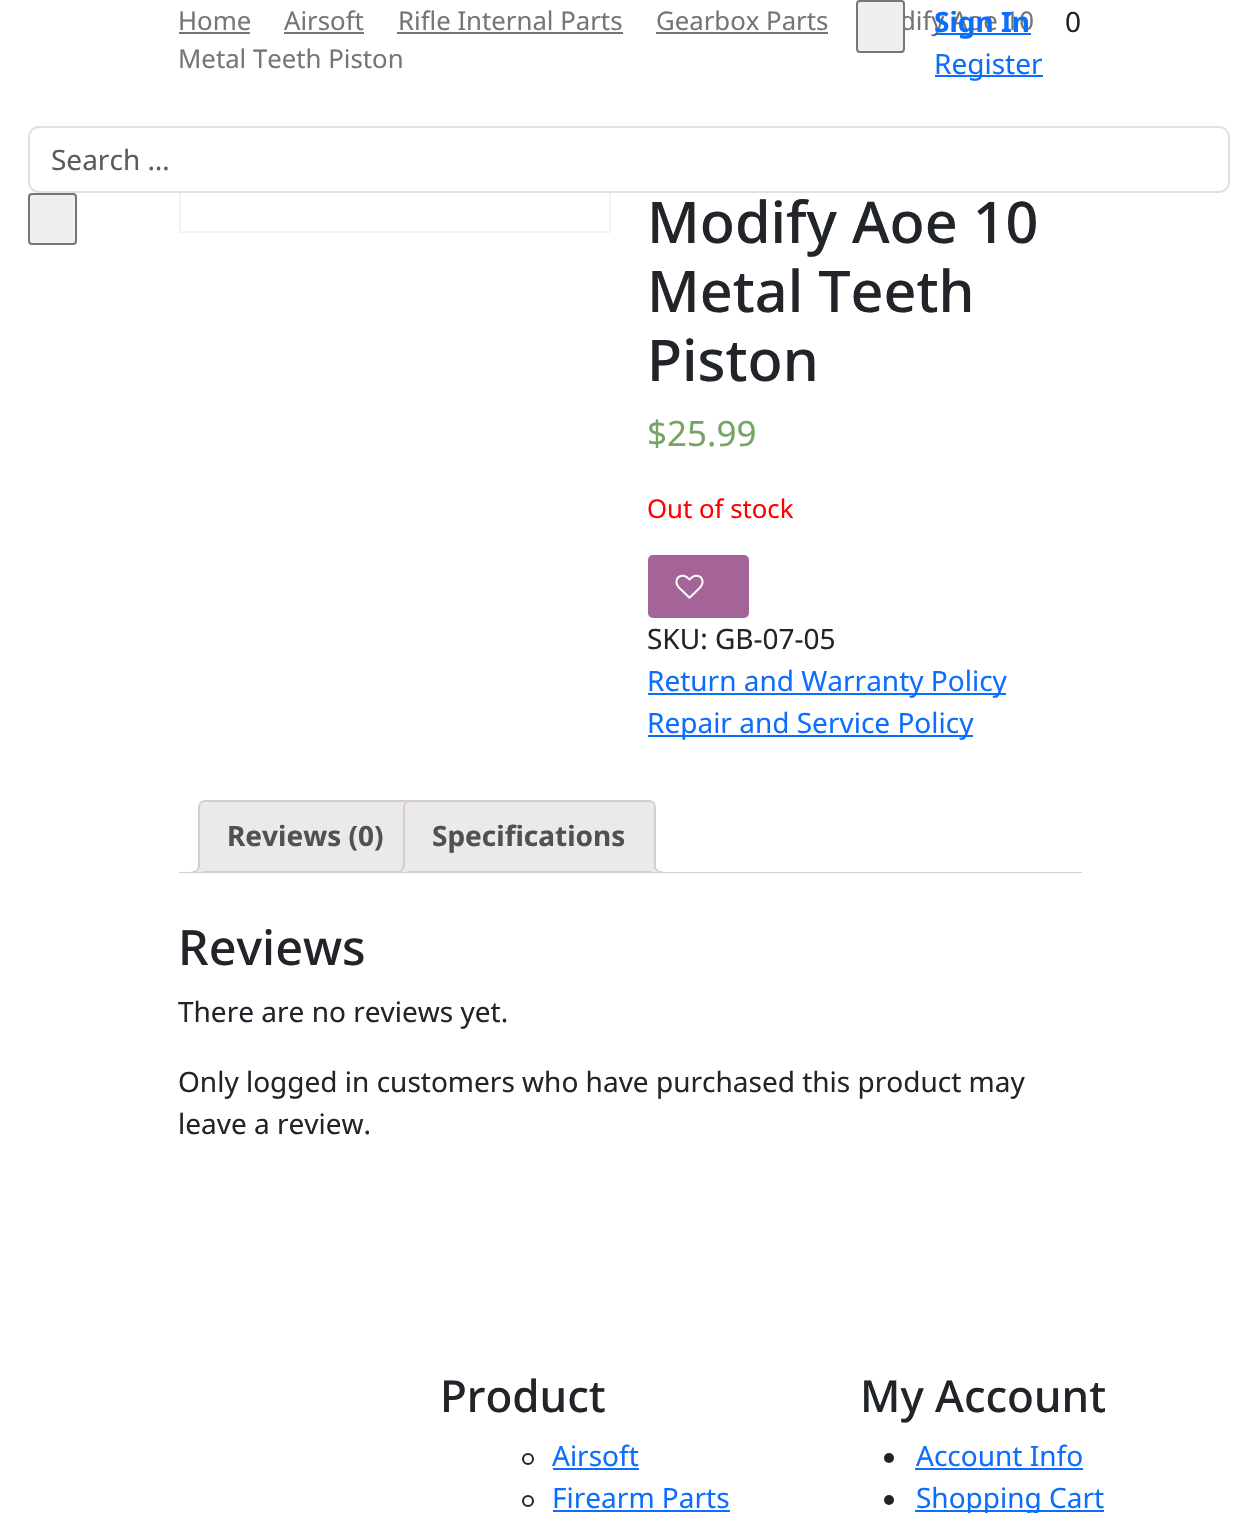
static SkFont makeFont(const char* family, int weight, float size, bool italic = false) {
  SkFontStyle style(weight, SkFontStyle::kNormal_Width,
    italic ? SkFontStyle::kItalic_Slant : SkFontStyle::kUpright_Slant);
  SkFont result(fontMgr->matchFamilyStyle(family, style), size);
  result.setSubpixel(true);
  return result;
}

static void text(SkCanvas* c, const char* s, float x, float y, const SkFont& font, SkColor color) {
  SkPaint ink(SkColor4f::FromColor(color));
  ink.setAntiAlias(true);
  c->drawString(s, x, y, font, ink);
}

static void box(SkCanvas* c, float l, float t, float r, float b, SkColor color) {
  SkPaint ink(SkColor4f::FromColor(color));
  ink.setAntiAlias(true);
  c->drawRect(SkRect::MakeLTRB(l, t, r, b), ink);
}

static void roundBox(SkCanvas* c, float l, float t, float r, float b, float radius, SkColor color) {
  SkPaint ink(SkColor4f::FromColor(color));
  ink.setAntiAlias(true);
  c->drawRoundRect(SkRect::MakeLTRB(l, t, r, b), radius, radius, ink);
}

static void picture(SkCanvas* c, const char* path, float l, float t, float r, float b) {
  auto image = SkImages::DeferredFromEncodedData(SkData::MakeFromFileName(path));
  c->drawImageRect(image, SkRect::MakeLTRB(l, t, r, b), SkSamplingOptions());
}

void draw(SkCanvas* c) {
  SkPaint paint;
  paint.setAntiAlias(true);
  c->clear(0xffffffff);
  SkFont face1 = makeFont("Noto Sans", 400, 25.75f);
  text(c, "dify Aoe 10", 900, 30, face1, 0xff767676);
  paint.setColor(0xffefefef);
  c->drawRoundRect(SkRect::MakeLTRB(857, 1, 904, 52), 3, 3, paint);
  paint.setStyle(SkPaint::kStroke_Style);
  paint.setStrokeWidth(2);
  paint.setColor(0xff767676);
  c->drawRoundRect(SkRect::MakeLTRB(857, 1, 904, 52), 3, 3, paint);
  box(c, 935, 33, 1031, 35, 0xff0d6efd);
  SkFont face2 = makeFont("Noto Sans", 700, 28);
  text(c, "Sign In", 934, 32, face2, 0xff0d6efd);
  box(c, 935, 75, 1043, 77, 0xff0d6efd);
  SkFont face3 = makeFont("Noto Sans", 400, 28);
  text(c, "Register", 934, 74, face3, 0xff0d6efd);
  text(c, "0", 1065, 32, face3, 0xff212529);
  paint.setColor(0xfff2f2f2);
  c->drawRect(SkRect::MakeLTRB(180, 188, 610, 232), paint);
  paint.setStyle(SkPaint::kFill_Style);
  paint.setColor(0xffffffff);
  c->drawRoundRect(SkRect::MakeLTRB(29, 127, 1229, 192), 10, 10, paint);
  paint.setStyle(SkPaint::kStroke_Style);
  paint.setColor(0xffdee2e6);
  c->drawRoundRect(SkRect::MakeLTRB(29, 127, 1229, 192), 10, 10, paint);
  text(c, "Search …", 51, 170, face3, 0xff595c5f);
  paint.setStyle(SkPaint::kFill_Style);
  paint.setColor(0xffefefef);
  c->drawRoundRect(SkRect::MakeLTRB(29, 194, 76, 244), 3, 3, paint);
  paint.setStyle(SkPaint::kStroke_Style);
  paint.setColor(0xff767676);
  c->drawRoundRect(SkRect::MakeLTRB(29, 194, 76, 244), 3, 3, paint);
  text(c, "Home", 178, 30, face1, 0xff767676);
  box(c, 179, 32, 250, 34, 0xff767676);
  text(c, "Airsoft", 284, 30, face1, 0xff767676);
  box(c, 284, 32, 364, 34, 0xff767676);
  text(c, "Rifle Internal Parts", 398, 30, face1, 0xff767676);
  box(c, 397, 32, 623, 34, 0xff767676);
  text(c, "Gearbox Parts", 656, 30, face1, 0xff767676);
  box(c, 656, 32, 828, 34, 0xff767676);
  text(c, "Metal Teeth Piston", 178, 68, face1, 0xff767676);
  SkFont face4 = makeFont("Noto Sans", 500, 57.5f);
  text(c, "Modify Aoe 10", 647, 243, face4, 0xff212529);
  text(c, "Metal Teeth", 647, 312, face4, 0xff212529);
  text(c, "Piston", 647, 381, face4, 0xff212529);
  SkFont face5 = makeFont("Noto Sans", 400, 35);
  text(c, "$25.99", 647, 446, face5, 0xff77a464);
  text(c, "Out of stock", 647, 518, face1, 0xffff0000);
  roundBox(c, 648, 555, 749, 618, 5, 0xffa46497);
  picture(c, "img_01.png", 675, 574, 704, 599);
  text(c, "SKU: GB-07-05", 647, 649, face3, 0xff212529);
  box(c, 648, 693, 1006, 695, 0xff0d6efd);
  text(c, "Return and Warranty Policy", 647, 691, face3, 0xff0d6efd);
  box(c, 648, 735, 973, 737, 0xff0d6efd);
  text(c, "Repair and Service Policy", 647, 733, face3, 0xff0d6efd);
  paint.setStyle(SkPaint::kFill_Style);
  paint.setColor(0xffebe9eb);
  c->drawPath(SkPathBuilder().moveTo(205, 801).lineTo(406, 801).cubicTo(409.5f, 801, 412, 803.5f, 412, 807).lineTo(412, 872).lineTo(199, 872).lineTo(199, 807).cubicTo(199, 803.5f, 201.5f, 801, 205, 801).close().detach(), paint);
  paint.setStyle(SkPaint::kStroke_Style);
  paint.setColor(0xffd3ced2);
  c->drawPath(SkPathBuilder().moveTo(205, 801).lineTo(406, 801).cubicTo(409.5f, 801, 412, 803.5f, 412, 807).lineTo(412, 872).lineTo(199, 872).lineTo(199, 807).cubicTo(199, 803.5f, 201.5f, 801, 205, 801).close().detach(), paint);
  text(c, "Reviews (0)", 227, 846, face2, 0xff515151);
  c->save();
  c->clipRect(SkRect::MakeLTRB(179, 800, 1082, 873));
  paint.setStyle(SkPaint::kFill_Style);
  paint.setColor(0xffebe9eb);
  c->drawPath(SkPathBuilder().moveTo(194, 873).lineTo(194, 877).cubicTo(200.5f, 877, 203, 874.5f, 203, 868).lineTo(199.5f, 868).cubicTo(198.5f, 870.5f, 196.5f, 872.5f, 194, 873).close().detach(), paint);
  c->restore();
  paint.setColor(0xffd3ced2);
  c->drawPath(SkPathBuilder(SkPathFillType::kEvenOdd).moveTo(191, 864.5f).lineTo(199.5f, 864.5f).cubicTo(199.5f, 870.5f, 197, 873, 191, 873).close().moveTo(191, 864.5f).lineTo(198, 864.5f).cubicTo(198, 869.5f, 196, 871.5f, 191, 871.5f).close().detach(), paint);
  paint.setColor(0xffebe9eb);
  c->drawPath(SkPathBuilder().moveTo(410, 801).lineTo(649, 801).cubicTo(652.5f, 801, 655, 803.5f, 655, 807).lineTo(655, 872).lineTo(404, 872).lineTo(404, 807).cubicTo(404, 803.5f, 406.5f, 801, 410, 801).close().detach(), paint);
  paint.setStyle(SkPaint::kStroke_Style);
  paint.setColor(0xffd3ced2);
  c->drawPath(SkPathBuilder().moveTo(410, 801).lineTo(649, 801).cubicTo(652.5f, 801, 655, 803.5f, 655, 807).lineTo(655, 872).lineTo(404, 872).lineTo(404, 807).cubicTo(404, 803.5f, 406.5f, 801, 410, 801).close().detach(), paint);
  text(c, "Specifications", 432, 846, face2, 0xff515151);
  c->save();
  c->clipRect(SkRect::MakeLTRB(179, 800, 1082, 873));
  paint.setStyle(SkPaint::kFill_Style);
  paint.setColor(0xffebe9eb);
  c->drawPath(SkPathBuilder().moveTo(399, 873).lineTo(399, 877).cubicTo(405.5f, 877, 408, 874.5f, 408, 868).lineTo(404, 868).cubicTo(403.5f, 870.5f, 401.5f, 872.5f, 399, 873).close().detach(), paint);
  c->restore();
  paint.setColor(0xffd3ced2);
  c->drawPath(SkPathBuilder(SkPathFillType::kEvenOdd).moveTo(395.5f, 864.5f).lineTo(404, 864.5f).cubicTo(404, 870.5f, 401.5f, 873, 395.5f, 873).close().moveTo(395.5f, 864.5f).lineTo(402.5f, 864.5f).cubicTo(402.5f, 869.5f, 400.5f, 871.5f, 395.5f, 871.5f).close().detach(), paint);
  c->save();
  c->clipRect(SkRect::MakeLTRB(179, 800, 1082, 873));
  paint.setColor(0xffebe9eb);
  c->drawPath(SkPathBuilder().moveTo(651, 868).cubicTo(651, 874.5f, 653.5f, 877, 660, 877).lineTo(660, 873).cubicTo(657.5f, 872.5f, 655.5f, 870.5f, 654.5f, 868).close().detach(), paint);
  c->restore();
  paint.setColor(0xffd3ced2);
  c->drawPath(SkPathBuilder(SkPathFillType::kEvenOdd).moveTo(654.5f, 864.5f).lineTo(663, 864.5f).lineTo(663, 873).cubicTo(659, 873, 654.5f, 871.5f, 654.5f, 866).close().moveTo(656, 864.5f).lineTo(663, 864.5f).lineTo(663, 871.5f).cubicTo(660, 871.5f, 656, 870.5f, 656, 866).close().detach(), paint);
  box(c, 179, 872, 1082, 873, 0xffd3ced2);
  SkFont face6 = makeFont("Noto Sans", 500, 48.5f);
  text(c, "Reviews", 178, 965, face6, 0xff212529);
  text(c, "There are no reviews yet.", 178, 1022, face3, 0xff212529);
  text(c, "Only logged in customers who have purchased this product may", 178, 1092, face3, 0xff212529);
  text(c, "leave a review.", 178, 1134, face3, 0xff212529);
  SkFont face7 = makeFont("Noto Sans", 500, 44);
  text(c, "Product", 440, 1412, face7, 0xff212529);
  paint.setStyle(SkPaint::kStroke_Style);
  paint.setColor(0xff212529);
  c->drawCircle(528, 1459, 5, paint);
  text(c, "Airsoft", 552, 1466, face3, 0xff0d6efd);
  box(c, 553, 1468, 639, 1470, 0xff0d6efd);
  c->drawCircle(528, 1501, 5, paint);
  text(c, "Firearm Parts", 552, 1508, face3, 0xff0d6efd);
  box(c, 553, 1510, 730, 1512, 0xff0d6efd);
  text(c, "My Account", 860, 1412, face7, 0xff212529);
  paint.setStyle(SkPaint::kFill_Style);
  c->drawCircle(889, 1458, 5, paint);
  text(c, "Account Info", 916, 1466, face3, 0xff0d6efd);
  box(c, 915, 1468, 1083, 1470, 0xff0d6efd);
  c->drawCircle(889, 1500, 5, paint);
  box(c, 915, 1510, 1104, 1512, 0xff0d6efd);
  text(c, "Shopping Cart", 916, 1508, face3, 0xff0d6efd);
}
